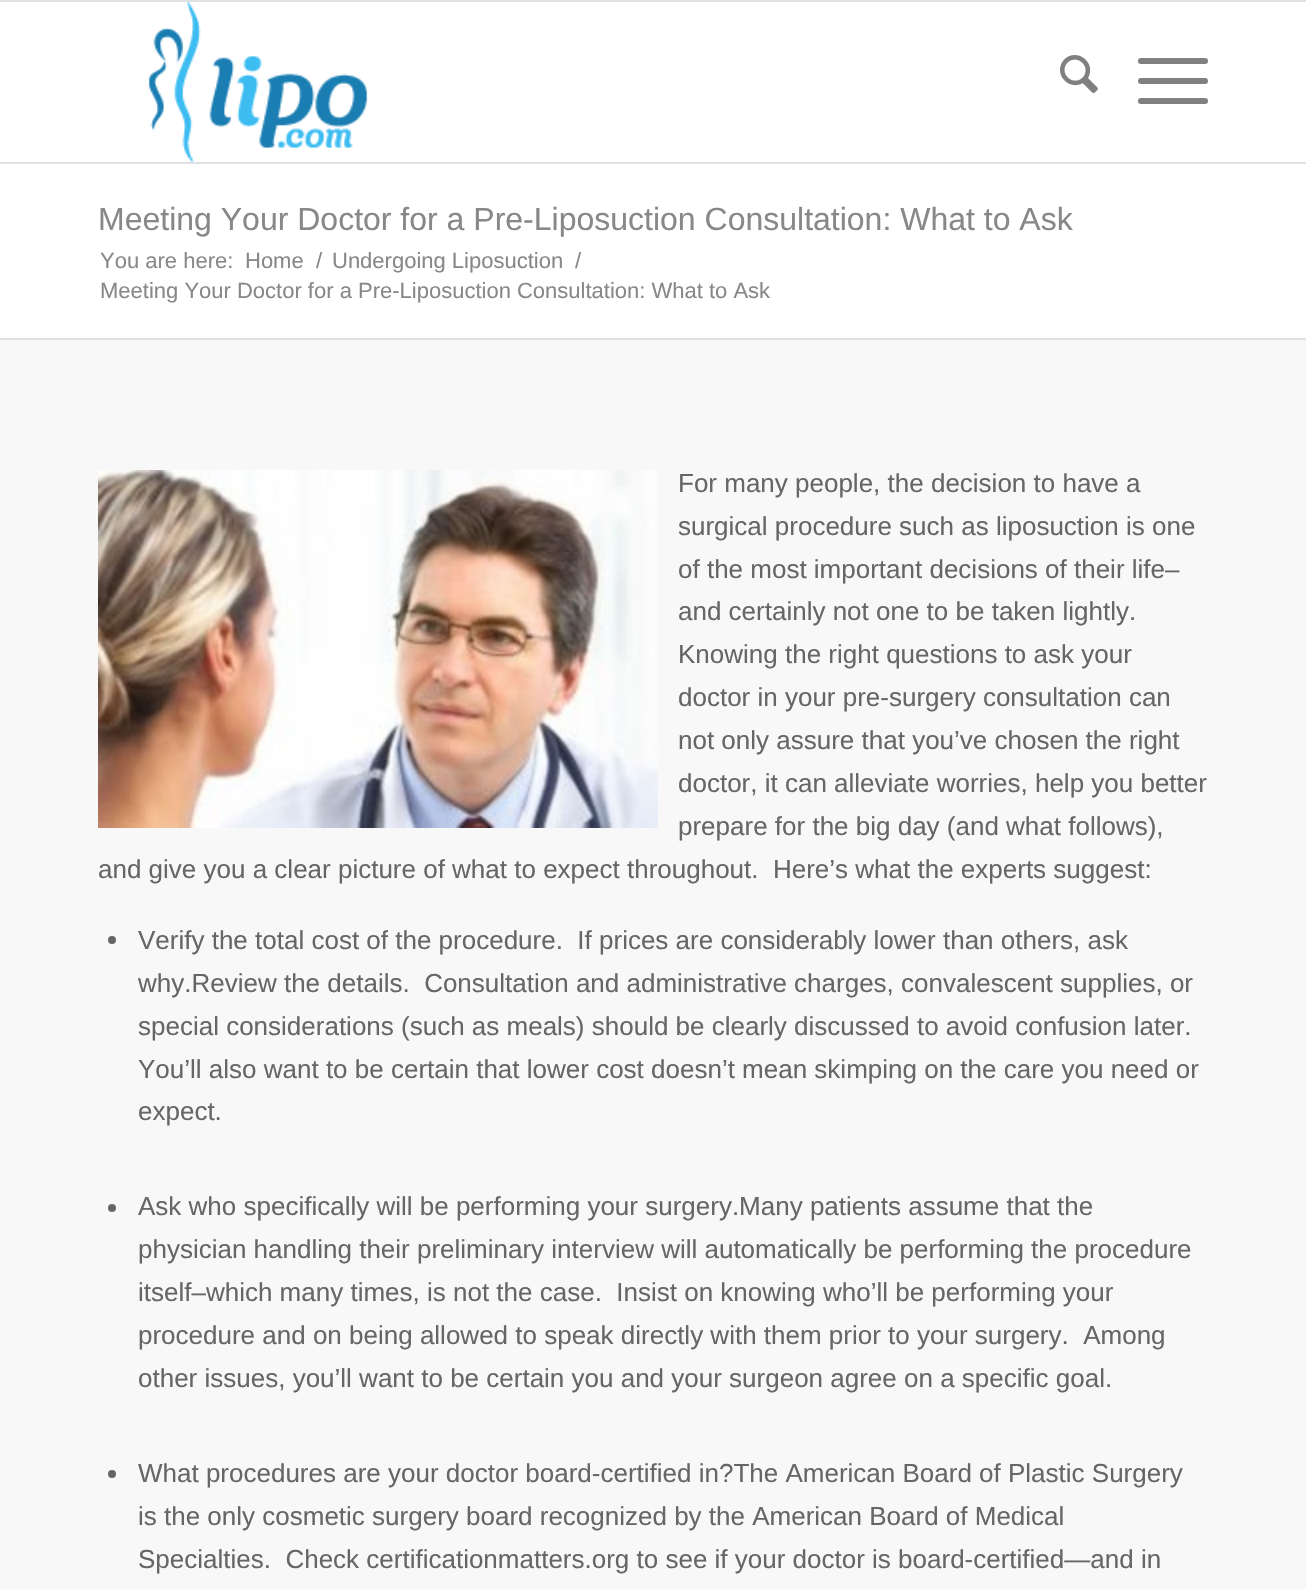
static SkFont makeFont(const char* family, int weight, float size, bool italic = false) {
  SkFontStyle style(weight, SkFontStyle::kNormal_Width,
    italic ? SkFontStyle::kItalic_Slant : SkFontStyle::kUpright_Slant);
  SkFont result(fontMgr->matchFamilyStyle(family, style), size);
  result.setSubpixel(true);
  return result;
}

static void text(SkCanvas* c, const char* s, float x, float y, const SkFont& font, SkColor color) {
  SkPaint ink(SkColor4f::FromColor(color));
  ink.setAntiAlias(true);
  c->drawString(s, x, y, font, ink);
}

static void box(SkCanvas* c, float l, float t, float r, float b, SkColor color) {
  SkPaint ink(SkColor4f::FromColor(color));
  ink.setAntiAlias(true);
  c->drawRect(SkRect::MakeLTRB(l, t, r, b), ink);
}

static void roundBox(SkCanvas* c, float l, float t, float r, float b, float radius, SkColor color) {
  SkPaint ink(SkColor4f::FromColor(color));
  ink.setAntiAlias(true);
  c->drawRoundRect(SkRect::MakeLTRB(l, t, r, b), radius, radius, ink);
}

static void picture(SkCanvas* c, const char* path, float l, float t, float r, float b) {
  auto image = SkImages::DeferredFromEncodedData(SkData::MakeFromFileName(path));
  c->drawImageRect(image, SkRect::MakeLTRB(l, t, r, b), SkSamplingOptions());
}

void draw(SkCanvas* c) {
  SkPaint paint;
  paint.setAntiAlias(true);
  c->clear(0xffffffff);
  box(c, 0, 0, 1306, 2, 0xffe1e1e1);
  box(c, 0, 162, 1306, 164, 0xffe1e1e1);
  picture(c, "img_01.png", 148, 2, 368, 162);
  picture(c, "img_02.png", 1060, 55, 1098, 93);
  roundBox(c, 1138, 78, 1208, 84, 3, 0xff808080);
  roundBox(c, 1138, 58, 1208, 64, 3, 0xff808080);
  roundBox(c, 1138, 98, 1208, 104, 3, 0xff808080);
  SkFont face1 = makeFont("Liberation Sans", 400, 32);
  text(c, "Meeting Your Doctor for a Pre-Liposuction Consultation: What to Ask", 98, 230, face1, 0xff888888);
  SkFont face2 = makeFont("Liberation Sans", 400, 22);
  text(c, "You are here:", 100, 268, face2, 0xff888888);
  text(c, "Home", 245, 268, face2, 0xff888888);
  text(c, "/", 316, 268, face2, 0xff888888);
  text(c, "Undergoing Liposuction", 332, 268, face2, 0xff888888);
  text(c, "/", 575, 268, face2, 0xff888888);
  text(c, "Meeting Your Doctor for a Pre-Liposuction Consultation: What to Ask", 100, 298, face2, 0xff888888);
  box(c, 0, 340, 1306, 1589, 0xfff8f8f8);
  box(c, 0, 338, 1306, 340, 0xffe1e1e1);
  picture(c, "img_03.png", 98, 470, 658, 828);
  SkFont face3 = makeFont("Liberation Sans", 400, 26);
  text(c, "For many people, the decision to have a", 678, 492, face3, 0xff666666);
  text(c, "surgical procedure such as liposuction is one", 678, 535, face3, 0xff666666);
  text(c, "of the most important decisions of their life–", 678, 578, face3, 0xff666666);
  text(c, "and certainly not one to be taken lightly.", 678, 620, face3, 0xff666666);
  text(c, "Knowing the right questions to ask your", 678, 663, face3, 0xff666666);
  text(c, "doctor in your pre-surgery consultation can", 678, 706, face3, 0xff666666);
  text(c, "not only assure that you’ve chosen the right", 678, 749, face3, 0xff666666);
  text(c, "doctor, it can alleviate worries, help you better", 678, 792, face3, 0xff666666);
  text(c, "prepare for the big day (and what follows),", 678, 835, face3, 0xff666666);
  text(c, "and give you a clear picture of what to expect throughout.  Here’s what the experts suggest:", 98, 878, face3, 0xff666666);
  paint.setColor(0xff666666);
  c->drawCircle(112, 940, 4, paint);
  text(c, "Verify the total cost of the procedure.  If prices are considerably lower than others, ask", 138, 949, face3, 0xff666666);
  text(c, "why.Review the details.  Consultation and administrative charges, convalescent supplies, or", 138, 992, face3, 0xff666666);
  text(c, "special considerations (such as meals) should be clearly discussed to avoid confusion later.", 138, 1035, face3, 0xff666666);
  text(c, "You’ll also want to be certain that lower cost doesn’t mean skimping on the care you need or", 138, 1078, face3, 0xff666666);
  text(c, "expect.", 138, 1120, face3, 0xff666666);
  c->drawCircle(112, 1208, 4, paint);
  text(c, "Ask who specifically will be performing your surgery.Many patients assume that the", 138, 1215, face3, 0xff666666);
  text(c, "physician handling their preliminary interview will automatically be performing the procedure", 138, 1258, face3, 0xff666666);
  text(c, "itself–which many times, is not the case.  Insist on knowing who’ll be performing your", 138, 1301, face3, 0xff666666);
  text(c, "procedure and on being allowed to speak directly with them prior to your surgery.  Among", 138, 1344, face3, 0xff666666);
  text(c, "other issues, you’ll want to be certain you and your surgeon agree on a specific goal.", 138, 1387, face3, 0xff666666);
  c->drawCircle(112, 1474, 4, paint);
  text(c, "What procedures are your doctor board-certified in?The American Board of Plastic Surgery", 138, 1482, face3, 0xff666666);
  text(c, "is the only cosmetic surgery board recognized by the American Board of Medical", 138, 1525, face3, 0xff666666);
  text(c, "Specialties.  Check certificationmatters.org to see if your doctor is board-certified—and in", 138, 1568, face3, 0xff666666);
}
